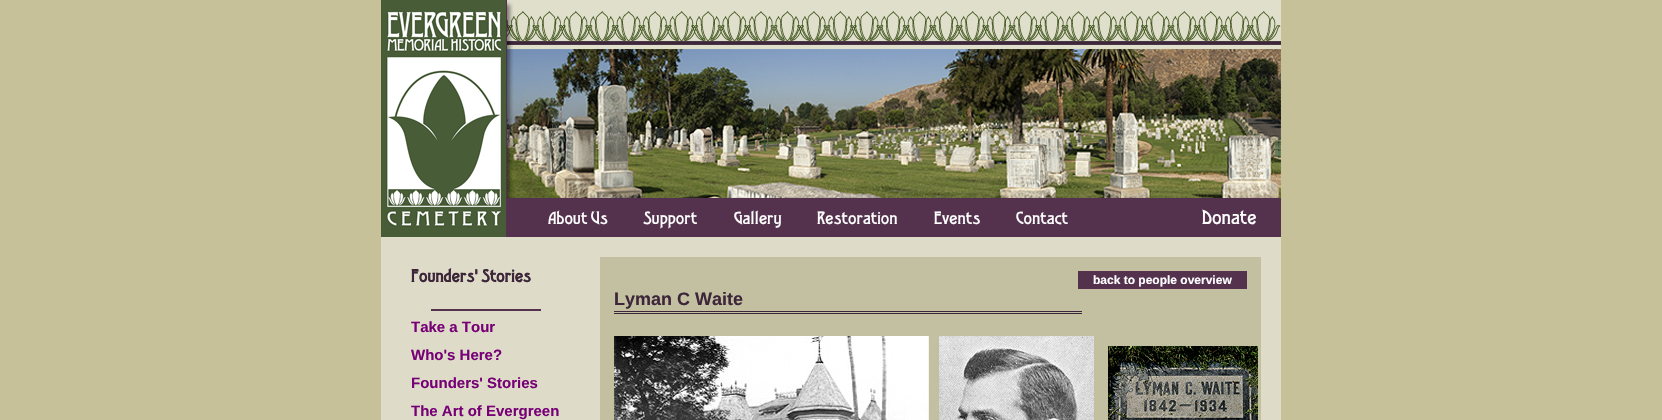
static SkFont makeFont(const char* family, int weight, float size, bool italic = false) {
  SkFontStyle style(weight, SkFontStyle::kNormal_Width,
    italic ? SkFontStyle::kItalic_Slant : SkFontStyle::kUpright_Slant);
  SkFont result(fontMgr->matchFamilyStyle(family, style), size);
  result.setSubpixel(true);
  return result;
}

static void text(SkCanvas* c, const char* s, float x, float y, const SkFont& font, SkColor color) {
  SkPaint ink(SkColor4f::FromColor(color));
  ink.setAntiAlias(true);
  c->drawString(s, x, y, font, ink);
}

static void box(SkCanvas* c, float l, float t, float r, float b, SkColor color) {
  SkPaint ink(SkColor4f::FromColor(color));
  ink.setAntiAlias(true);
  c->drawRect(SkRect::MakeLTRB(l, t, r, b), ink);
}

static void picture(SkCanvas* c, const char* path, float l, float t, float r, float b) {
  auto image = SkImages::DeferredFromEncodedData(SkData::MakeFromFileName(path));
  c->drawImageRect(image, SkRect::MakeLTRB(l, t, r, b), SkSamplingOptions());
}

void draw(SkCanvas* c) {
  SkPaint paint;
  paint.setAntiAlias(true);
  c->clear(0xffc6c199);
  box(c, 506, 0, 1281, 237, 0xff54324e);
  picture(c, "img_01.png", 381, 0, 506, 237);
  picture(c, "img_02.png", 507, 0, 1281, 49);
  picture(c, "img_03.png", 507, 49, 1281, 198);
  SkFont face1 = makeFont("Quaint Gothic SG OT", 400, 18);
  text(c, "About Us", 548, 224, face1, 0xffffffff);
  text(c, "Support", 643, 224, face1, 0xffffffff);
  text(c, "Gallery", 734, 224, face1, 0xffffffff);
  text(c, "Restoration", 817, 224, face1, 0xffffffff);
  text(c, "Events", 934, 224, face1, 0xffffffff);
  text(c, "Contact", 1016, 224, face1, 0xffffffff);
  SkFont face2 = makeFont("Quaint Gothic SG OT", 400, 20.5f);
  text(c, "Donate", 1202, 224, face2, 0xffffffff);
  box(c, 381, 237, 1281, 420, 0xffdedcc8);
  SkFont face3 = makeFont("Quaint Gothic SG OT", 700, 18);
  text(c, "Founders' Stories", 411, 282, face3, 0xff3d263a);
  box(c, 431, 309, 541, 311, 0xff54324e);
  SkFont face4 = makeFont("Liberation Sans", 700, 15);
  text(c, "Take a Tour", 411, 332, face4, 0xff770077);
  text(c, "Who's Here?", 411, 360, face4, 0xff770077);
  text(c, "Founders' Stories", 411, 388, face4, 0xff770077);
  text(c, "The Art of Evergreen", 411, 416, face4, 0xff770077);
  box(c, 600, 257, 1261, 420, 0xffc2c0a0);
  box(c, 1078, 271, 1247, 289, 0xff54324e);
  SkFont face5 = makeFont("Liberation Sans", 700, 12);
  text(c, "back to people overview", 1093, 284, face5, 0xffffffff);
  box(c, 614, 311, 1082, 312, 0xff3d263a);
  box(c, 614, 313, 1082, 314, 0xff3d263a);
  SkFont face6 = makeFont("Liberation Sans", 700, 18);
  text(c, "Lyman C Waite", 614, 305, face6, 0xff3d263a);
  picture(c, "img_04.png", 614, 336, 1094, 420);
  picture(c, "img_05.png", 1108, 346, 1258, 420);
}
